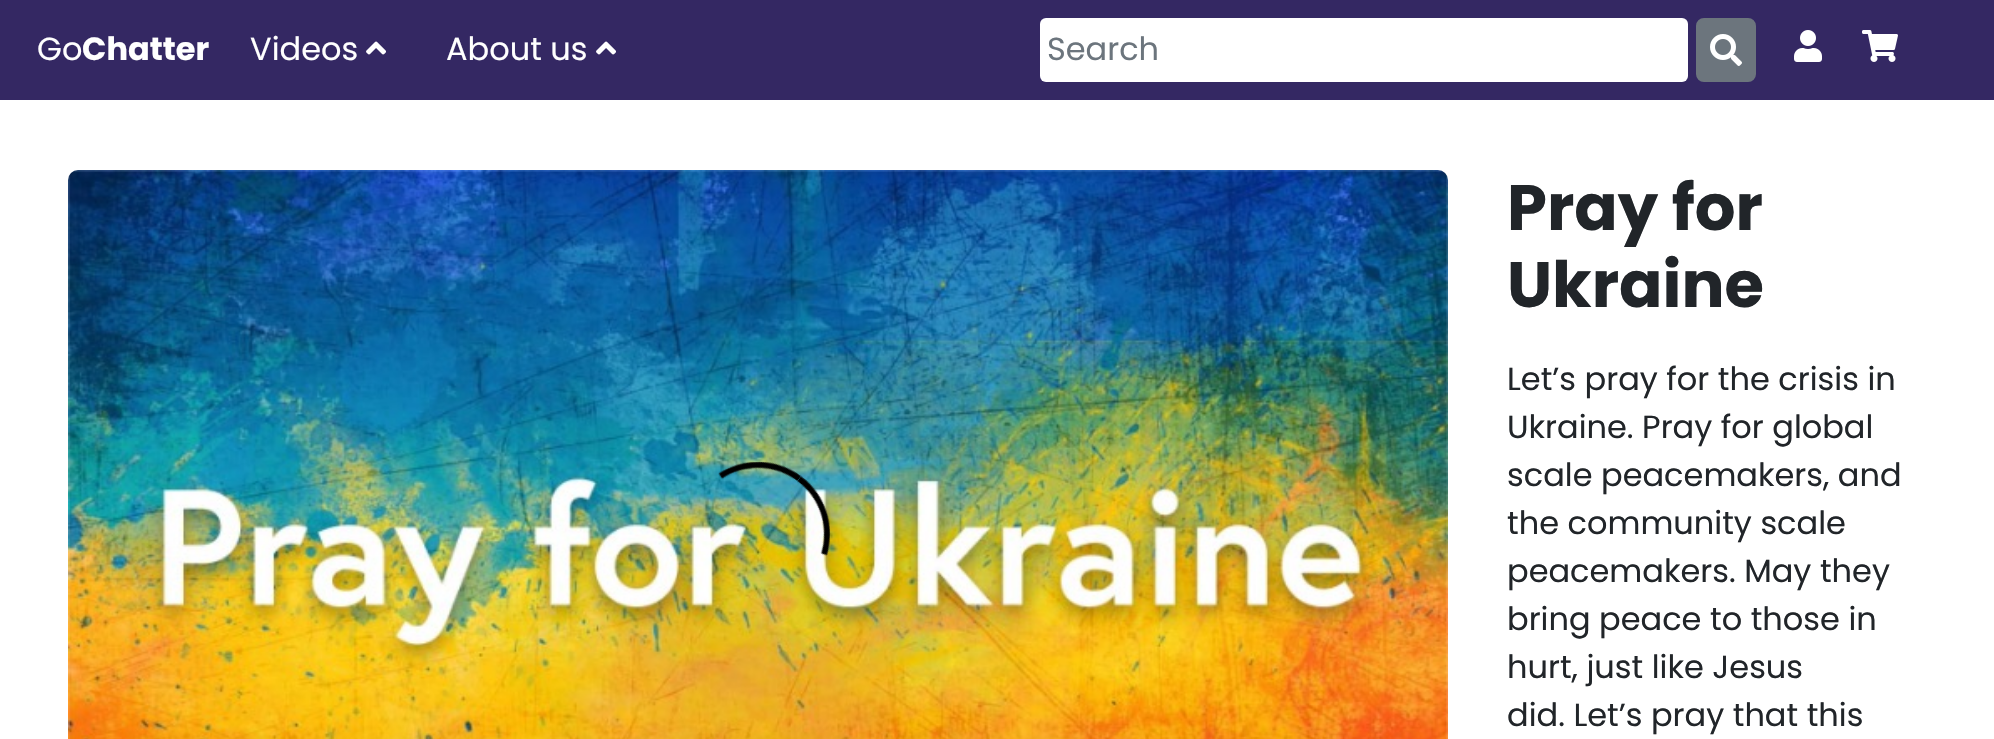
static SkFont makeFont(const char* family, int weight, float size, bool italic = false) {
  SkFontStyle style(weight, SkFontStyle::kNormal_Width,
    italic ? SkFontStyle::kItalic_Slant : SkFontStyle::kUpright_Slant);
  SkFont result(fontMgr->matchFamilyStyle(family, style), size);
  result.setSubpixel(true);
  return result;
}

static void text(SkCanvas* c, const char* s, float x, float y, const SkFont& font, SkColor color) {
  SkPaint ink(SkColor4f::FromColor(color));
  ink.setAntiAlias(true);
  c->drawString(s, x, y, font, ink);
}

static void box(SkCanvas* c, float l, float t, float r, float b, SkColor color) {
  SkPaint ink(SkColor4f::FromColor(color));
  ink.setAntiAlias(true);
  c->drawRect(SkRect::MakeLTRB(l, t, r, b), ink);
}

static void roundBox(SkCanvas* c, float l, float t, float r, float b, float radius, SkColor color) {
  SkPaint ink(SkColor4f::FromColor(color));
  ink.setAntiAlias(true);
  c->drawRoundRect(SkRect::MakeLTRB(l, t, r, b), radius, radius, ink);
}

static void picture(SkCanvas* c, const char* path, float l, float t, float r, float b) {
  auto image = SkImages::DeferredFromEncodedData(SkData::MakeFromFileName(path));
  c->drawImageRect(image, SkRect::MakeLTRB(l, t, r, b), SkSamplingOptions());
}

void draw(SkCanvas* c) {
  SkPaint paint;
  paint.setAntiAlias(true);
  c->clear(0xffffffff);
  box(c, 0, 0, 1994, 100, 0xff342863);
  SkFont face1 = makeFont("Poppins", 400, 32);
  text(c, "Go", 37, 60, face1, 0xffffffff);
  SkFont face2 = makeFont("Poppins", 700, 32);
  text(c, "Chatter", 82, 60, face2, 0xffffffff);
  text(c, "Videos", 250, 60, face1, 0xffffffff);
  picture(c, "img_01.png", 366, 41, 386, 55);
  text(c, "About us", 446, 60, face1, 0xffffffff);
  picture(c, "img_01.png", 596, 41, 616, 55);
  roundBox(c, 1040, 18, 1688, 82, 6, 0xffffffff);
  text(c, "Search", 1047, 60, face1, 0xff6c757d);
  paint.setColor(0xff6c757d);
  c->drawRoundRect(SkRect::MakeLTRB(1697, 19, 1755, 81), 7, 7, paint);
  paint.setStyle(SkPaint::kStroke_Style);
  paint.setStrokeWidth(2);
  c->drawRoundRect(SkRect::MakeLTRB(1697, 19, 1755, 81), 7, 7, paint);
  picture(c, "img_02.png", 1710, 34, 1742, 66);
  picture(c, "img_03.png", 1794, 30, 1822, 62);
  picture(c, "img_04.png", 1862, 30, 1898, 62);
  picture(c, "img_05.png", 68, 170, 1448, 739);
  SkFont face3 = makeFont("Poppins", 700, 64);
  text(c, "Pray for", 1507, 230, face3, 0xff212529);
  text(c, "Ukraine", 1507, 307, face3, 0xff212529);
  text(c, "Let’s pray for the crisis in", 1507, 390, face1, 0xff212529);
  text(c, "Ukraine. Pray for global", 1507, 438, face1, 0xff212529);
  text(c, "scale peacemakers, and", 1507, 486, face1, 0xff212529);
  text(c, "the community scale", 1507, 534, face1, 0xff212529);
  text(c, "peacemakers. May they", 1507, 582, face1, 0xff212529);
  text(c, "bring peace to those in", 1507, 630, face1, 0xff212529);
  text(c, "hurt, just like Jesus", 1507, 678, face1, 0xff212529);
  text(c, "did. Let’s pray that this", 1507, 726, face1, 0xff212529);
}
